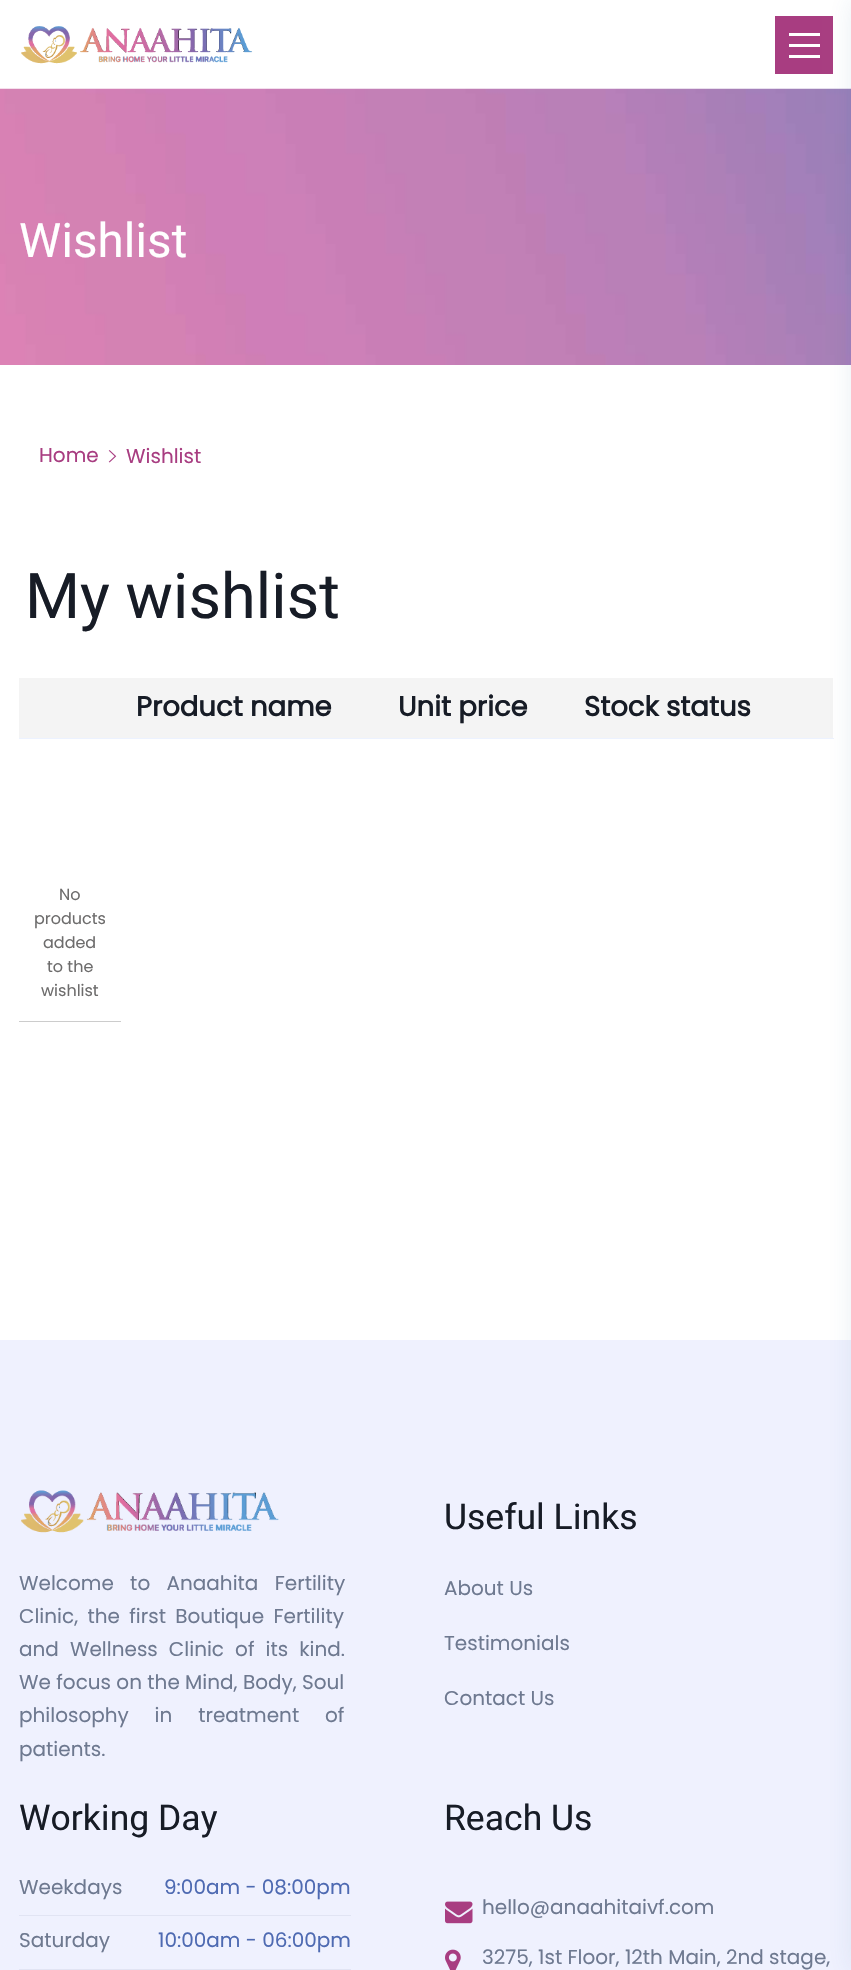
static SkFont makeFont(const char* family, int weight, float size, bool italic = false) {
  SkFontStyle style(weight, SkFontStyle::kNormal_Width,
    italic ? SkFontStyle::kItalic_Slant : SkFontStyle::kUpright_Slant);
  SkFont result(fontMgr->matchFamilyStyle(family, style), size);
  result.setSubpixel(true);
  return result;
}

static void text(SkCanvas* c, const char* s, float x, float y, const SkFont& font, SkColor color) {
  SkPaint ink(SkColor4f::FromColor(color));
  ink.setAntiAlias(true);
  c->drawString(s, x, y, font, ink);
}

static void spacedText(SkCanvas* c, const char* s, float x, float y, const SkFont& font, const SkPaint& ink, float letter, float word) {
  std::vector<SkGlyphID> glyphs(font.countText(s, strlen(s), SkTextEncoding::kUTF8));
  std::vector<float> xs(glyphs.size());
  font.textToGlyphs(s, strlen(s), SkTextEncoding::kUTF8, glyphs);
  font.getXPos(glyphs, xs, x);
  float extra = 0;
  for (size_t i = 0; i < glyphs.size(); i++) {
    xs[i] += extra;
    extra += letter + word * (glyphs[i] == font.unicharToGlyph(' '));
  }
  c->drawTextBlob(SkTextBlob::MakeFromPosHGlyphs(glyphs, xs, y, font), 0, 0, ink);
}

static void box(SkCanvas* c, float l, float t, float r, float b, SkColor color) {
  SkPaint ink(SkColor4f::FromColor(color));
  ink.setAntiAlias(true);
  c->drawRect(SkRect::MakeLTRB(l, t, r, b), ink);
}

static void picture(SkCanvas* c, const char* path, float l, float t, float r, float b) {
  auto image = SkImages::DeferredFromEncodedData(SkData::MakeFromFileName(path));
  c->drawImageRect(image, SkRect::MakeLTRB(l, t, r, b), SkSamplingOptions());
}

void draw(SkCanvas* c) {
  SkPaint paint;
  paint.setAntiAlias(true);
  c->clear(0xffffffff);
  picture(c, "img_01.png", 21, 26, 253, 64);
  box(c, 775, 16, 833, 74, 0xffa83d81);
  box(c, 789, 33, 820, 36, 0xffffffff);
  box(c, 789, 44, 820, 47, 0xffffffff);
  box(c, 789, 55, 820, 58, 0xffffffff);
  picture(c, "img_02.png", 0, 88, 851, 365);
  SkFont face1 = makeFont("Heebo", 400, 47.5f);
  text(c, "Wishlist", 19, 257, face1, 0xffffffff);
  SkFont face2 = makeFont("Poppins", 400, 20);
  text(c, "Home", 39, 462, face2, 0xffa83d81);
  picture(c, "img_03.png", 108, 450, 117, 463);
  text(c, "Wishlist", 126, 463, face2, 0xffa83d81);
  SkFont face3 = makeFont("Heebo", 400, 63);
  text(c, "My wishlist", 25, 618, face3, 0xff171c26);
  box(c, 19, 678, 833, 738, 0xfff4f4f4);
  SkFont face4 = makeFont("Poppins", 700, 27.5f);
  text(c, "Product name", 136, 716, face4, 0xff171c26);
  text(c, "Unit price", 398, 716, face4, 0xff171c26);
  text(c, "Stock status", 584, 716, face4, 0xff171c26);
  box(c, 19, 738, 834, 739, 0xffecf2ff);
  box(c, 19, 1021, 121, 1022, 0xffcccccc);
  SkFont face5 = makeFont("Poppins", 400, 16);
  text(c, "No", 59, 900, face5, 0xff6d6c6c);
  text(c, "products", 34, 924, face5, 0xff6d6c6c);
  text(c, "added", 43, 948, face5, 0xff6d6c6c);
  text(c, "to the", 47, 972, face5, 0xff6d6c6c);
  text(c, "wishlist", 41, 996, face5, 0xff6d6c6c);
  box(c, 0, 1340, 851, 1970, 0xffeff1fe);
  picture(c, "img_04.png", 21, 1490, 279, 1533);
  paint.setColor(0xff6e7990);
  spacedText(c, "Welcome to Anaahita Fertility", 19, 1590, face2, paint, 0, 11);
  spacedText(c, "Clinic, the first Boutique Fertility", 19, 1623, face2, paint, 0, 4);
  spacedText(c, "and Wellness Clinic of its kind.", 19, 1656, face2, paint, 0, 5.75f);
  text(c, "We focus on the Mind, Body, Soul", 19, 1689, face2, 0xff6e7990);
  spacedText(c, "philosophy in treatment of", 19, 1722, face2, paint, 0, 20.5f);
  text(c, "patients.", 19, 1756, face2, 0xff6e7990);
  SkFont face6 = makeFont("Heebo", 400, 35.5f);
  text(c, "Useful Links", 444, 1529, face6, 0xff171c26);
  text(c, "About Us", 444, 1595, face2, 0xff6e7990);
  text(c, "Testimonials", 444, 1650, face2, 0xff6e7990);
  text(c, "Contact Us", 444, 1705, face2, 0xff6e7990);
  text(c, "Working Day", 19, 1830, face6, 0xff171c26);
  box(c, 19, 1915, 351, 1916, 0xffe1e4f3);
  text(c, "Weekdays", 19, 1894, face2, 0xff6e7990);
  text(c, "9:00am - 08:00pm", 164, 1894, face2, 0xff4e6ab2);
  box(c, 19, 1969, 351, 1970, 0xffe1e4f3);
  text(c, "Saturday", 19, 1947, face2, 0xff6e7990);
  text(c, "10:00am - 06:00pm", 158, 1947, face2, 0xff4e6ab2);
  text(c, "Reach Us", 444, 1830, face6, 0xff171c26);
  picture(c, "img_05.png", 445, 1901, 473, 1924);
  text(c, "hello@anaahitaivf.com", 482, 1914, face2, 0xff6e7990);
  picture(c, "img_06.png", 445, 1949, 461, 1970);
  text(c, "3275, 1st Floor, 12th Main, 2nd stage,", 482, 1964, face2, 0xff6e7990);
  paint.setColor(0x1a2c6590);
  paint.setMaskFilter(SkMaskFilter::MakeBlur(kNormal_SkBlurStyle, 12.5f));
  c->drawRect(SkRect::MakeLTRB(851, 0, 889, 1970), paint);
  paint.setMaskFilter(nullptr);
}
